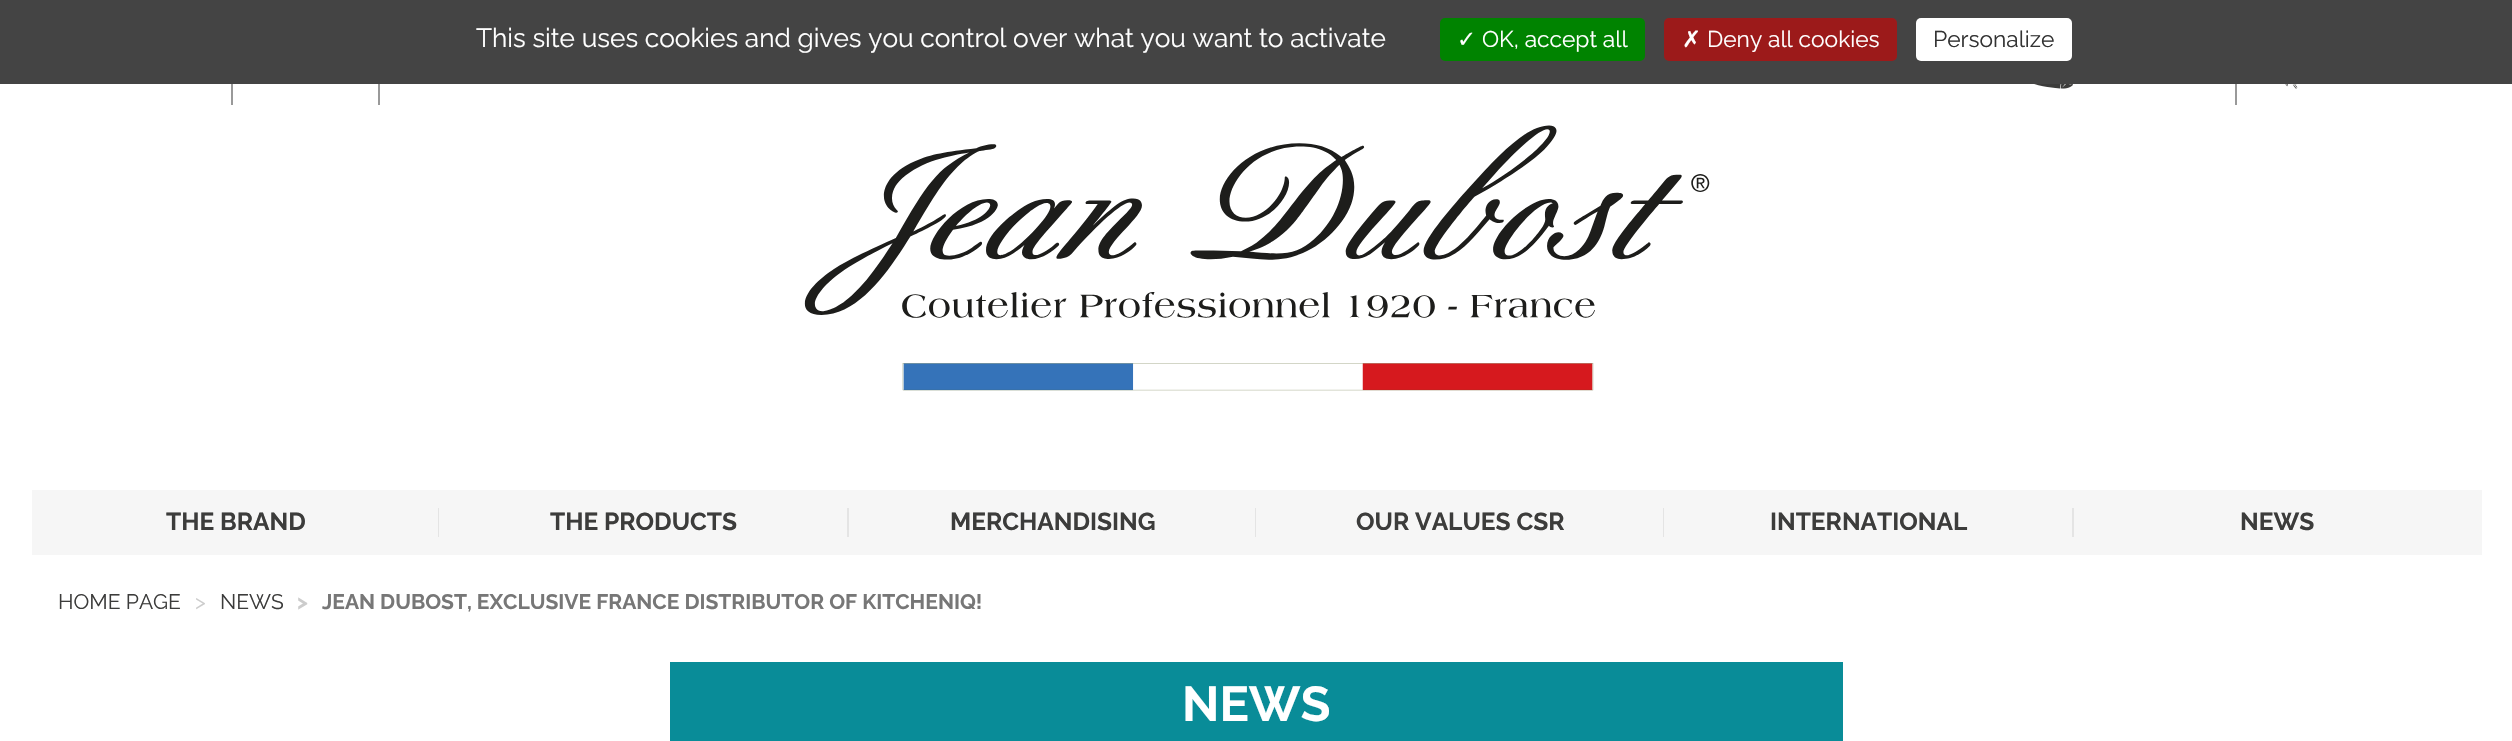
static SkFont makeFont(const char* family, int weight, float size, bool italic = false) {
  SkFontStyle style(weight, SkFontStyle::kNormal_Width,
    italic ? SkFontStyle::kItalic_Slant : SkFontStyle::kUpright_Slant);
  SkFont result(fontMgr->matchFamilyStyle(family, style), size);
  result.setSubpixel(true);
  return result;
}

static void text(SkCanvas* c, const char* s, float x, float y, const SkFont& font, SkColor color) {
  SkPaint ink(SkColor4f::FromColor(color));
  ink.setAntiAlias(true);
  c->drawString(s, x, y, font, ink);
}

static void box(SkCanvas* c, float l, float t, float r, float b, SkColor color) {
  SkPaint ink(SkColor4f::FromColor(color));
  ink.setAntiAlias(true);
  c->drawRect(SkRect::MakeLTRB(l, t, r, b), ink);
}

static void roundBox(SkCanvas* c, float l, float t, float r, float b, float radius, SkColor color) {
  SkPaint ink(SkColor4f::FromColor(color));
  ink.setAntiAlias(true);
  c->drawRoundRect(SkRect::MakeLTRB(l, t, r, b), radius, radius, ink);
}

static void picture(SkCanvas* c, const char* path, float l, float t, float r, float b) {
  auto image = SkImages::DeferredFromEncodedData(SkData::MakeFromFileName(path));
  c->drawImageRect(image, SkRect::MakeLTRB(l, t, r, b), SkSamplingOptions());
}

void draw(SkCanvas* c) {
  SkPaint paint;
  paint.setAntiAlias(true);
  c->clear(0xffffffff);
  box(c, 0, 0, 2512, 84, 0xff444444);
  SkFont face1 = makeFont("Raleway", 400, 26.25f);
  text(c, "This site uses cookies and gives you control over what you want to activate", 476, 47, face1, 0xffffffff);
  roundBox(c, 1440, 18, 1645, 61, 5, 0xff008300);
  SkFont face2 = makeFont("DejaVu Sans", 400, 22.75f);
  text(c, "✓", 1457, 47, face2, 0xffffffff);
  SkFont face3 = makeFont("Raleway", 400, 22.75f);
  text(c, "OK, accept all", 1482, 47, face3, 0xffffffff);
  roundBox(c, 1664, 18, 1897, 61, 5, 0xff9c1a1a);
  text(c, "✗", 1682, 47, face2, 0xffffffff);
  text(c, "Deny all cookies", 1707, 47, face3, 0xffffffff);
  roundBox(c, 1916, 18, 2072, 61, 5, 0xffffffff);
  text(c, "Personalize", 1933, 47, face3, 0xff333333);
  box(c, 231, 84, 233, 105, 0xff999999);
  box(c, 378, 84, 380, 105, 0xff999999);
  box(c, 2235, 84, 2237, 105, 0xff999999);
  picture(c, "img_01.png", 2034, 84, 2073, 89);
  picture(c, "img_02.png", 2285, 84, 2298, 89);
  picture(c, "img_03.png", 804, 125, 1710, 391);
  box(c, 32, 490, 2482, 555, 0xfff6f6f6);
  box(c, 438, 508, 439, 537, 0xffe4e4e4);
  SkFont face4 = makeFont("Raleway", 700, 24.5f);
  text(c, "THE BRAND", 166, 530, face4, 0xff3c3c3b);
  box(c, 847, 508, 849, 537, 0xffe4e4e4);
  text(c, "THE PRODUCTS", 550, 530, face4, 0xff3c3c3b);
  box(c, 1255, 508, 1256, 537, 0xffe4e4e4);
  text(c, "MERCHANDISING", 950, 530, face4, 0xff3c3c3b);
  box(c, 1663, 508, 1664, 537, 0xffe4e4e4);
  text(c, "OUR VALUES CSR", 1356, 530, face4, 0xff3c3c3b);
  box(c, 2072, 508, 2074, 537, 0xffe4e4e4);
  text(c, "INTERNATIONAL", 1770, 530, face4, 0xff3c3c3b);
  text(c, "NEWS", 2240, 530, face4, 0xff3c3c3b);
  SkFont face5 = makeFont("Raleway", 400, 21);
  text(c, "HOME PAGE", 58, 609, face5, 0xff3c3c3b);
  text(c, ">", 195, 609, face5, 0xffcccccc);
  text(c, "NEWS", 220, 609, face5, 0xff3c3c3b);
  SkFont face6 = makeFont("Raleway", 700, 21);
  text(c, ">", 297, 609, face6, 0xffcccccc);
  text(c, "JEAN DUBOST, EXCLUSIVE FRANCE DISTRIBUTOR OF KITCHENIQ!", 322, 609, face6, 0xff777777);
  box(c, 670, 662, 1843, 741, 0xff098c98);
  SkFont face7 = makeFont("Raleway", 700, 49);
  text(c, "NEWS", 1182, 721, face7, 0xffffffff);
}
